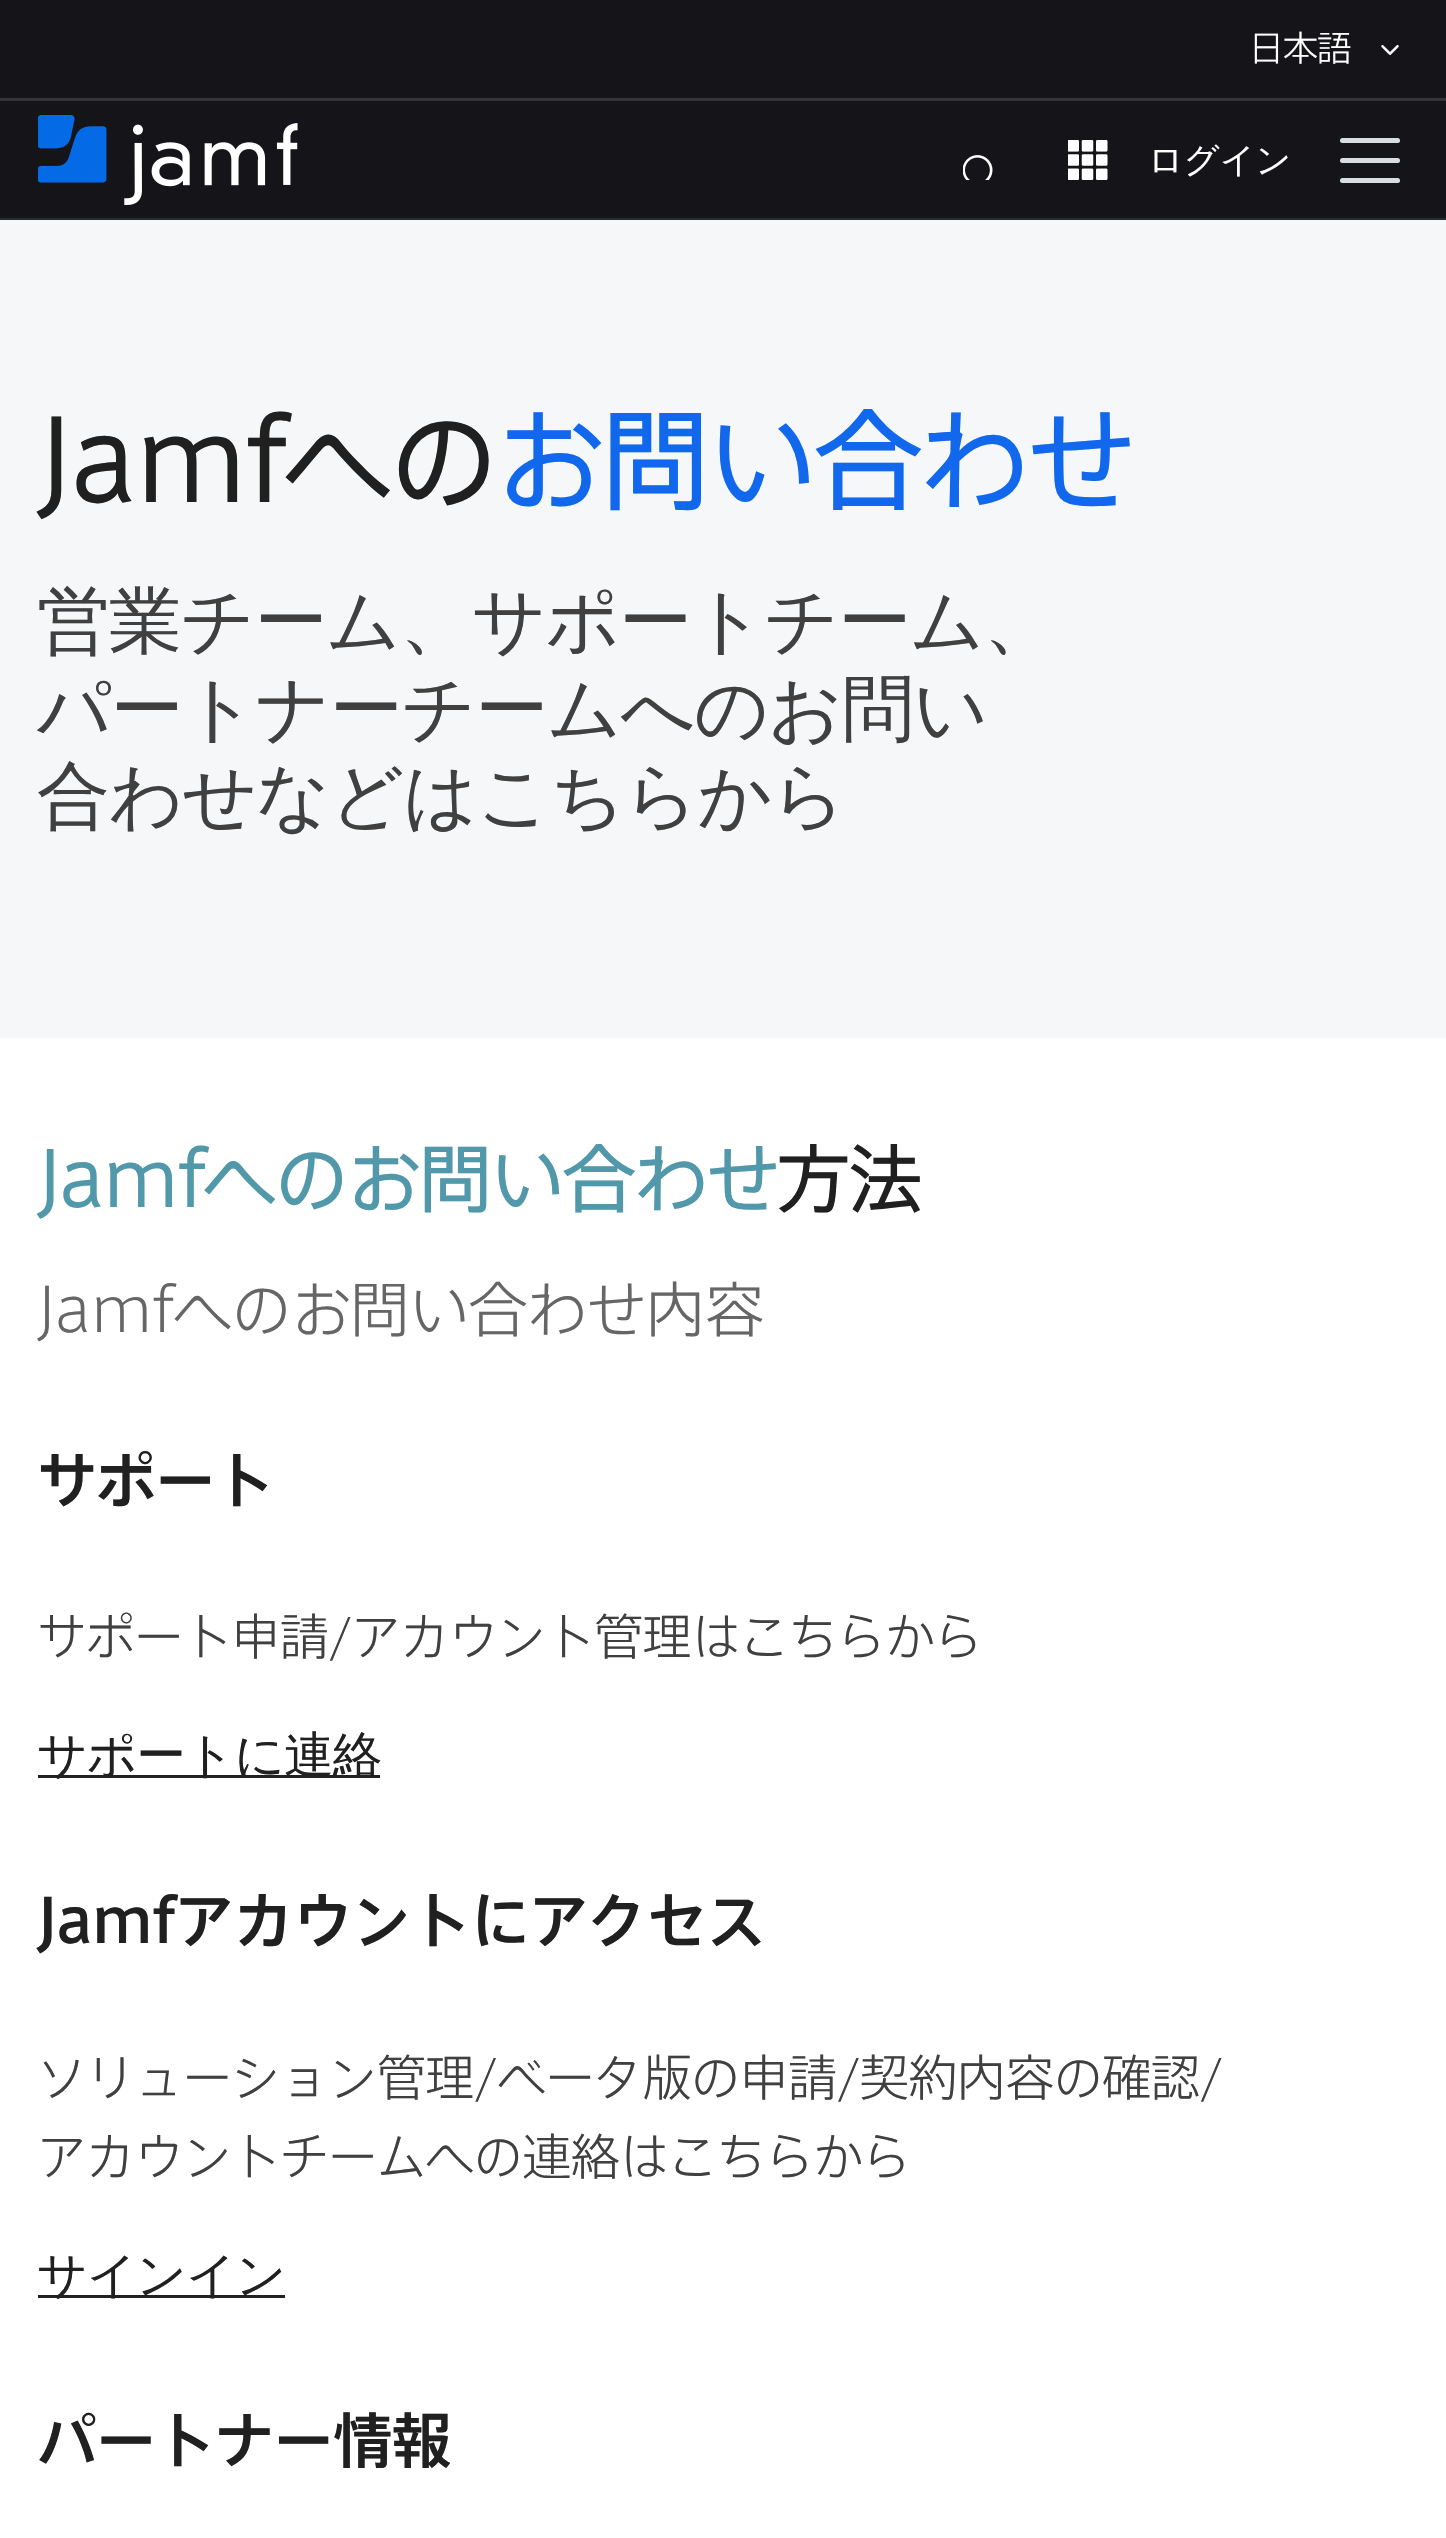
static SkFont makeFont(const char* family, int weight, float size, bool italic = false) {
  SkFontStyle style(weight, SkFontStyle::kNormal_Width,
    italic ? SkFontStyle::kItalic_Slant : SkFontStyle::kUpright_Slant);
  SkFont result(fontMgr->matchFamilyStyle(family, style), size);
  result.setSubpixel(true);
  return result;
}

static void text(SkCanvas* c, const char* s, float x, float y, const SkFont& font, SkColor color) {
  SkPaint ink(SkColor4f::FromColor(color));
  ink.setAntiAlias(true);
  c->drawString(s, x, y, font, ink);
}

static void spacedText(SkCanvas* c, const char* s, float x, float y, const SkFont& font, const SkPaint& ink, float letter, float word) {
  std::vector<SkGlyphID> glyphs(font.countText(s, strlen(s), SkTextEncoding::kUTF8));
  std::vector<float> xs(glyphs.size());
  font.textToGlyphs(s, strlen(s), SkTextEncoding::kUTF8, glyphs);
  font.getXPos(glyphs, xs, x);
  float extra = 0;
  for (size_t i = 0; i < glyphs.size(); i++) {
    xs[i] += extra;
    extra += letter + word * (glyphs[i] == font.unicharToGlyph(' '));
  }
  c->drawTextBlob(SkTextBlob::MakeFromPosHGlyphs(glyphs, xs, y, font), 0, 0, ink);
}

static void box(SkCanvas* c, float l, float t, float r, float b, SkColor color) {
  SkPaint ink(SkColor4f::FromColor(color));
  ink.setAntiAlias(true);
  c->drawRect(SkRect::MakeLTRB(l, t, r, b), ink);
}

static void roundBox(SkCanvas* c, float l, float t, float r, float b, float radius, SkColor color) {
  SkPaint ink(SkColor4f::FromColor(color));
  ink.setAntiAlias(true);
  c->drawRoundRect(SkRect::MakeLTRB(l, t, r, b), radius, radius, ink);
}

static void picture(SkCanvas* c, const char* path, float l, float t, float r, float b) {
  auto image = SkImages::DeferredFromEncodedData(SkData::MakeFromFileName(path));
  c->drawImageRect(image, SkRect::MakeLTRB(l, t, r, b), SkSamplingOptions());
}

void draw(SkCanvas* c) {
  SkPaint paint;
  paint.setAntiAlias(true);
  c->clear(0xffffffff);
  box(c, 0, 0, 1446, 218, 0xff151519);
  box(c, 0, 218, 1446, 220, 0xff2c2c30);
  box(c, 0, 98, 1446, 101, 0xff323335);
  SkFont face1 = makeFont("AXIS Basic", 300, 35);
  paint.setColor(0xffffffff);
  spacedText(c, "日本語", 1249, 61, face1, paint, -1.1f, 0);
  picture(c, "img_01.png", 1381, 45, 1399, 55);
  picture(c, "img_02.png", 38, 115, 298, 205);
  roundBox(c, 1340, 138, 1400, 143, 2.5f, 0xffd8dde2);
  roundBox(c, 1340, 158, 1400, 163, 2.5f, 0xffd8dde2);
  roundBox(c, 1340, 178, 1400, 183, 2.5f, 0xffd8dde2);
  picture(c, "img_03.png", 963, 155, 993, 180);
  picture(c, "img_04.png", 1068, 140, 1108, 180);
  SkFont face2 = makeFont("WenQuanYi Zen Hei", 500, 35);
  text(c, "ログイン", 1148, 172, face2, 0xffffffff);
  box(c, 0, 221, 1446, 1038, 0xfff5f7f8);
  box(c, 0, 220, 1446, 221, 0xfff6f8f9);
  SkFont face3 = makeFont("AXIS Basic", 700, 107.5f);
  paint.setColor(0xff202020);
  spacedText(c, "Jamfへの", 37, 502, face3, paint, -1.1f, 0);
  paint.setColor(0xff1268ec);
  spacedText(c, "お問い合わせ", 494, 502, face3, paint, -1.1f, 0);
  SkFont face4 = makeFont("WenQuanYi Zen Hei", 500, 73);
  paint.setColor(0xff404040);
  spacedText(c, "営業チーム、サポートチーム、", 37, 646, face4, paint, -1.1f, 0);
  spacedText(c, "パートナーチームへのお問い", 37, 734, face4, paint, -1.1f, 0);
  spacedText(c, "合わせなどはこちらから", 37, 821, face4, paint, -1.1f, 0);
  SkFont face5 = makeFont("AXIS Basic", 700, 73);
  paint.setColor(0xff5098aa);
  spacedText(c, "Jamfへのお問い合わせ", 37, 1207, face5, paint, -1.1f, 0);
  paint.setColor(0xff202020);
  spacedText(c, "方法", 776, 1207, face5, paint, -1.1f, 0);
  SkFont face6 = makeFont("AXIS Basic", 300, 60.2f);
  paint.setColor(0xff666666);
  spacedText(c, "Jamfへのお問い合わせ内容", 37, 1332, face6, paint, -1.1f, 0);
  SkFont face7 = makeFont("AXIS Basic", 500, 60.2f);
  paint.setColor(0xff202020);
  spacedText(c, "サポート", 37, 1503, face7, paint, -1.1f, 0);
  SkFont face8 = makeFont("AXIS Basic", 300, 49.6f);
  paint.setColor(0xff404040);
  spacedText(c, "サポート申請/アカウント管理はこちらから", 37, 1655, face8, paint, -1.1f, 0);
  box(c, 38, 1775, 380, 1778, 0xff212121);
  SkFont face9 = makeFont("WenQuanYi Zen Hei", 500, 49.6f);
  paint.setColor(0xff202020);
  spacedText(c, "サポートに連絡", 37, 1772, face9, paint, -1.1f, 0);
  spacedText(c, "Jamfアカウントにアクセス", 37, 1943, face7, paint, -1.1f, 0);
  paint.setColor(0xff404040);
  spacedText(c, "ソリューション管理/ベータ版の申請/契約内容の確認/", 37, 2096, face8, paint, -1.1f, 0);
  spacedText(c, "アカウントチームへの連絡はこちらから", 37, 2175, face8, paint, -1.1f, 0);
  box(c, 38, 2295, 285, 2298, 0xff212121);
  paint.setColor(0xff202020);
  spacedText(c, "サインイン", 37, 2292, face9, paint, -1.1f, 0);
  spacedText(c, "パートナー情報", 37, 2463, face7, paint, -1.1f, 0);
}
